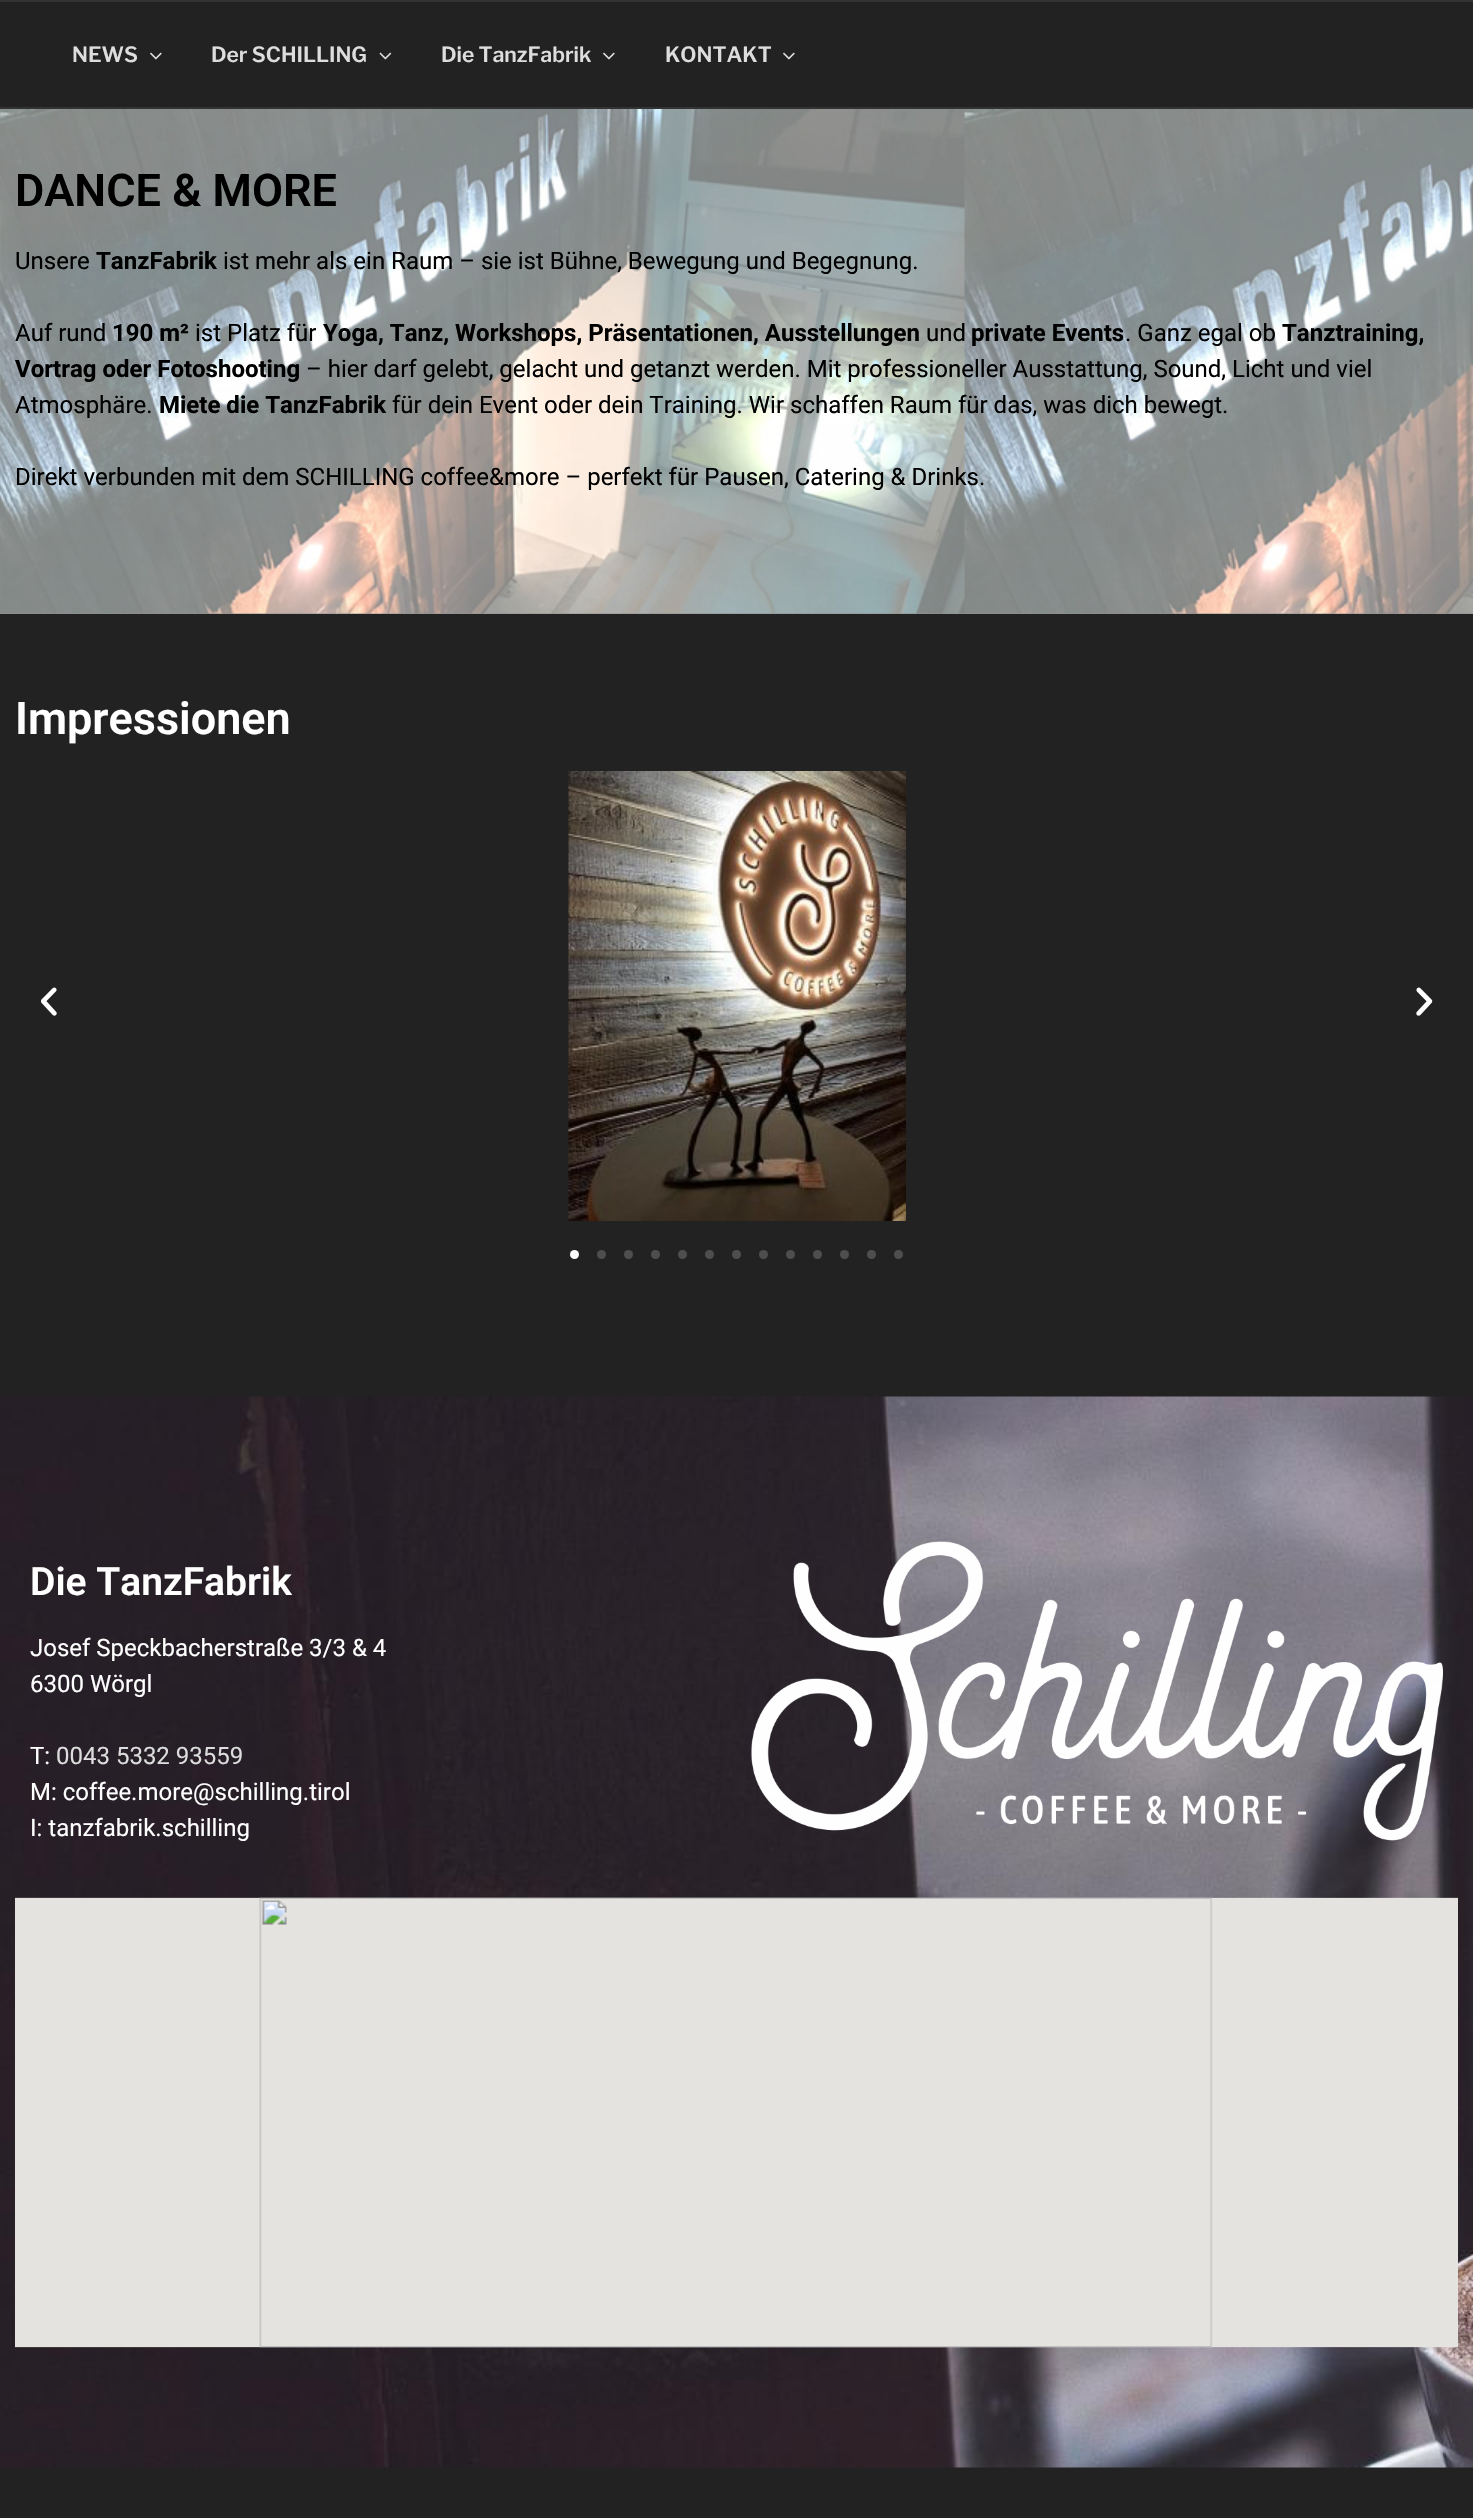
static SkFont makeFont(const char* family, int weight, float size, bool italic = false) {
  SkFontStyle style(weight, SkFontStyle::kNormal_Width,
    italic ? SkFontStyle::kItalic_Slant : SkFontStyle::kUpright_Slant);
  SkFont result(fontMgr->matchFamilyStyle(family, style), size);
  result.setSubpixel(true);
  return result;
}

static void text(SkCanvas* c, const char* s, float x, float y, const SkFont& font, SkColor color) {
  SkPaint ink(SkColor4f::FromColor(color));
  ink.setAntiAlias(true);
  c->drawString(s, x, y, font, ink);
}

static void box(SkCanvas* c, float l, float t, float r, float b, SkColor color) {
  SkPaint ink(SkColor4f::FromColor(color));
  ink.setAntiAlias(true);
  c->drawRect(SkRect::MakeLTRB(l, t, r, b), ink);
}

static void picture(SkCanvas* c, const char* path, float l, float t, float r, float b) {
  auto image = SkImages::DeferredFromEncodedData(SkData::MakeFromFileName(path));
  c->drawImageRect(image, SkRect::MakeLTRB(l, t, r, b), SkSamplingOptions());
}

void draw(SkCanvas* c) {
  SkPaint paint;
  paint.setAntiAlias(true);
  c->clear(0xff222222);
  box(c, 0, 613, 1473, 614, 0xff919191);
  box(c, 0, 0, 1473, 2, 0xff333333);
  box(c, 0, 107, 1473, 109, 0xff333333);
  SkFont face1 = makeFont("Libre Franklin", 100, 21);
  text(c, "NEWS", 72, 62, face1, 0xffdddddd);
  picture(c, "img_01.png", 150, 52, 162, 60);
  text(c, "Der SCHILLING", 211, 62, face1, 0xffdddddd);
  picture(c, "img_02.png", 379, 52, 392, 60);
  text(c, "Die TanzFabrik", 441, 62, face1, 0xffdddddd);
  picture(c, "img_01.png", 603, 52, 615, 60);
  text(c, "KONTAKT", 665, 62, face1, 0xffdddddd);
  picture(c, "img_01.png", 783, 52, 795, 60);
  picture(c, "img_03.png", 0, 109, 1473, 614);
  SkFont face2 = makeFont("Roboto", 600, 45);
  text(c, "DANCE & MORE", 15, 206, face2, 0xff000000);
  SkFont face3 = makeFont("Roboto", 400, 24);
  text(c, "Unsere", 15, 269, face3, 0xff000000);
  SkFont face4 = makeFont("Roboto", 700, 24);
  text(c, "TanzFabrik", 96, 269, face4, 0xff000000);
  text(c, "ist mehr als ein Raum – sie ist Bühne, Bewegung und Begegnung.", 223, 269, face3, 0xff000000);
  text(c, "Auf rund", 15, 341, face3, 0xff000000);
  text(c, "190 m²", 112, 341, face4, 0xff000000);
  text(c, "ist Platz für", 195, 341, face3, 0xff000000);
  text(c, "Yoga, Tanz, Workshops, Präsentationen, Ausstellungen", 323, 341, face4, 0xff000000);
  text(c, "und", 926, 341, face3, 0xff000000);
  text(c, "private Events", 971, 341, face4, 0xff000000);
  text(c, ". Ganz egal ob", 1125, 341, face3, 0xff000000);
  text(c, "Tanztraining,", 1282, 341, face4, 0xff000000);
  text(c, "Vortrag oder Fotoshooting", 15, 377, face4, 0xff000000);
  text(c, "– hier darf gelebt, gelacht und getanzt werden. Mit professioneller Ausstattung, Sound, Licht und viel", 306, 377, face3, 0xff000000);
  text(c, "Atmosphäre.", 15, 413, face3, 0xff000000);
  text(c, "Miete die TanzFabrik", 159, 413, face4, 0xff000000);
  text(c, "für dein Event oder dein Training. Wir schaffen Raum für das, was dich bewegt.", 392, 413, face3, 0xff000000);
  text(c, "Direkt verbunden mit dem SCHILLING coffee&more – perfekt für Pausen, Catering & Drinks.", 15, 485, face3, 0xff000000);
  text(c, "Impressionen", 15, 734, face2, 0xffffffff);
  picture(c, "img_04.png", 41, 987, 57, 1016);
  picture(c, "img_05.png", 568, 771, 906, 1221);
  picture(c, "img_06.png", 1416, 987, 1433, 1016);
  paint.setColor(0xffffffff);
  c->drawCircle(574.5f, 1254.5f, 4.5f, paint);
  paint.setColor(0xff4e4e4e);
  c->drawCircle(601.5f, 1254.5f, 4.5f, paint);
  c->drawCircle(628.5f, 1254.5f, 4.5f, paint);
  c->drawCircle(655.5f, 1254.5f, 4.5f, paint);
  c->drawCircle(682.5f, 1254.5f, 4.5f, paint);
  c->drawCircle(709.5f, 1254.5f, 4.5f, paint);
  c->drawCircle(736.5f, 1254.5f, 4.5f, paint);
  c->drawCircle(763.5f, 1254.5f, 4.5f, paint);
  c->drawCircle(790.5f, 1254.5f, 4.5f, paint);
  c->drawCircle(817.5f, 1254.5f, 4.5f, paint);
  c->drawCircle(844.5f, 1254.5f, 4.5f, paint);
  c->drawCircle(871.5f, 1254.5f, 4.5f, paint);
  c->drawCircle(898.5f, 1254.5f, 4.5f, paint);
  picture(c, "img_07.png", 0, 1396, 1473, 2468);
  SkFont face5 = makeFont("Roboto", 600, 39);
  text(c, "Die TanzFabrik", 30, 1595, face5, 0xffffffff);
  text(c, "Josef Speckbacherstraße 3/3 & 4", 30, 1656, face3, 0xffffffff);
  text(c, "6300 Wörgl", 30, 1692, face3, 0xffffffff);
  text(c, "T:", 30, 1764, face3, 0xffffffff);
  text(c, "0043 5332 93559", 56, 1764, face3, 0xffdddddd);
  text(c, "M: coffee.more@schilling.tirol", 30, 1800, face3, 0xffffffff);
  text(c, "I: tanzfabrik.schilling", 30, 1836, face3, 0xffffffff);
  picture(c, "img_08.png", 751, 1541, 1443, 1841);
  picture(c, "img_09.png", 15, 1897, 1458, 2348);
}
